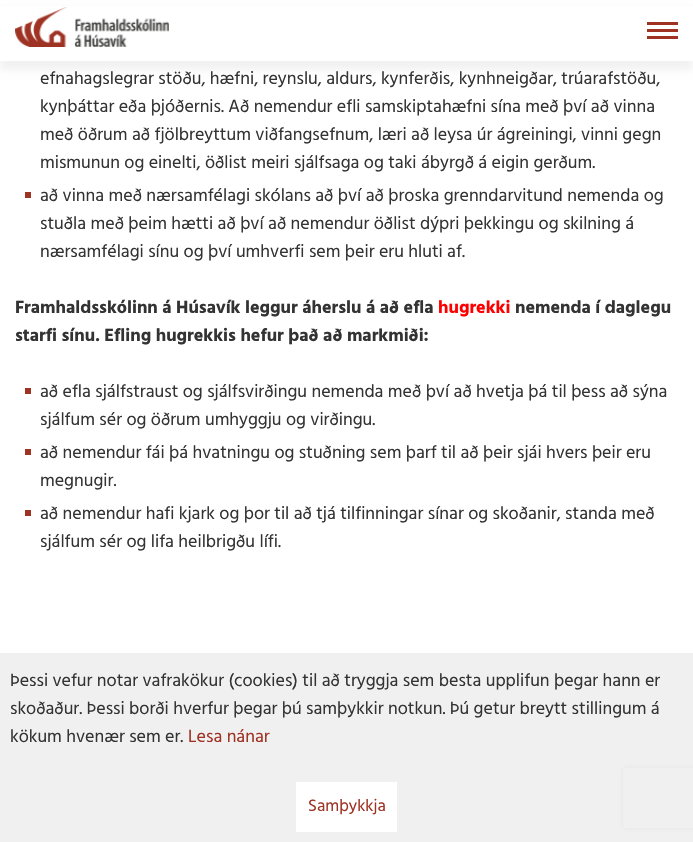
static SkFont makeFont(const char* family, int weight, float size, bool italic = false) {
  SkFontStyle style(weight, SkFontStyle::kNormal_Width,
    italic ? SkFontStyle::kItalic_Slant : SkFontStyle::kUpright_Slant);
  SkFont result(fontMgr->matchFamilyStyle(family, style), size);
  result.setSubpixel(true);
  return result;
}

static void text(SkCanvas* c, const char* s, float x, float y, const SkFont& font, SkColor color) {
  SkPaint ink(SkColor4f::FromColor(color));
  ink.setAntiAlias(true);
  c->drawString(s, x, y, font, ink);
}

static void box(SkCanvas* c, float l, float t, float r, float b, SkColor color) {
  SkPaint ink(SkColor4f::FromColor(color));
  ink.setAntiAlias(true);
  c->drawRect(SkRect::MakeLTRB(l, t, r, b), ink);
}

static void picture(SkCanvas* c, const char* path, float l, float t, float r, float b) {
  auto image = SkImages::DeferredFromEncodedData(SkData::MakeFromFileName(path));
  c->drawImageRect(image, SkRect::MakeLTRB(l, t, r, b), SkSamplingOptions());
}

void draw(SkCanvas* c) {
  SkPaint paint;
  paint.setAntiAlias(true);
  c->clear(0xffffffff);
  paint.setColor(0x0d000000);
  paint.setMaskFilter(SkMaskFilter::MakeBlur(kNormal_SkBlurStyle, 3.5f));
  c->drawRect(SkRect::MakeLTRB(0, 9, 693, 70), paint);
  paint.setMaskFilter(nullptr);
  box(c, 0, 6, 693, 61, 0xffffffff);
  picture(c, "img_01.png", 15, 7, 169, 47);
  box(c, 647, 22, 678, 25, 0xff9e3223);
  box(c, 647, 29, 678, 32, 0xff9e3223);
  box(c, 647, 36, 678, 39, 0xff9e3223);
  SkFont face1 = makeFont("Hind", 400, 18);
  text(c, "efnahagslegrar stöðu, hæfni, reynslu, aldurs, kynferðis, kynhneigðar, trúarafstöðu,", 40, 84, face1, 0xff333333);
  text(c, "kynþáttar eða þjóðernis. Að nemendur efli samskiptahæfni sína með því að vinna", 40, 112, face1, 0xff333333);
  text(c, "með öðrum að fjölbreyttum viðfangsefnum, læri að leysa úr ágreiningi, vinni gegn", 40, 140, face1, 0xff333333);
  text(c, "mismunun og einelti, öðlist meiri sjálfsaga og taki ábyrgð á eigin gerðum.", 40, 168, face1, 0xff333333);
  box(c, 25, 192, 31, 198, 0xff9e3223);
  text(c, "að vinna með nærsamfélagi skólans að því að þroska grenndarvitund nemenda og", 40, 201, face1, 0xff333333);
  text(c, "stuðla með þeim hætti að því að nemendur öðlist dýpri þekkingu og skilning á", 40, 229, face1, 0xff333333);
  text(c, "nærsamfélagi sínu og því umhverfi sem þeir eru hluti af.", 40, 257, face1, 0xff333333);
  SkFont face2 = makeFont("Hind", 700, 18);
  text(c, "Framhaldsskólinn á Húsavík leggur áherslu á að efla", 15, 313, face2, 0xff333333);
  text(c, "hugrekki", 438, 313, face2, 0xffff0000);
  text(c, "nemenda í daglegu", 515, 313, face2, 0xff333333);
  text(c, "starfi sínu. Efling hugrekkis hefur það að markmiði:", 15, 341, face2, 0xff333333);
  box(c, 25, 388, 31, 394, 0xff9e3223);
  text(c, "að efla sjálfstraust og sjálfsvirðingu nemenda með því að hvetja þá til þess að sýna", 40, 397, face1, 0xff333333);
  text(c, "sjálfum sér og öðrum umhyggju og virðingu.", 40, 425, face1, 0xff333333);
  box(c, 25, 449, 31, 455, 0xff9e3223);
  text(c, "að nemendur fái þá hvatningu og stuðning sem þarf til að þeir sjái hvers þeir eru", 40, 458, face1, 0xff333333);
  text(c, "megnugir.", 40, 486, face1, 0xff333333);
  box(c, 25, 510, 31, 516, 0xff9e3223);
  text(c, "að nemendur hafi kjark og þor til að tjá tilfinningar sínar og skoðanir, standa með", 40, 519, face1, 0xff333333);
  text(c, "sjálfum sér og lifa heilbrigðu lífi.", 40, 547, face1, 0xff333333);
  c->save();
  c->clipPath(SkPathBuilder(SkPathFillType::kEvenOdd).moveTo(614, 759).lineTo(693, 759).lineTo(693, 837).lineTo(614, 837).close().moveTo(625, 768).lineTo(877, 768).cubicTo(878, 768, 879, 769, 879, 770).lineTo(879, 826).cubicTo(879, 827, 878, 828, 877, 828).lineTo(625, 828).cubicTo(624, 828, 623, 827, 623, 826).lineTo(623, 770).cubicTo(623, 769, 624, 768, 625, 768).close().detach(), true);
  paint.setColor(0xff808080);
  paint.setMaskFilter(SkMaskFilter::MakeBlur(kNormal_SkBlurStyle, 2.5f));
  c->drawRoundRect(SkRect::MakeLTRB(623, 768, 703, 828), 2, 2, paint);
  paint.setMaskFilter(nullptr);
  c->restore();
  box(c, 0, 653, 693, 842, 0xe6eeeeee);
  text(c, "Þessi vefur notar vafrakökur (cookies) til að tryggja sem besta upplifun þegar hann er", 10, 686, face1, 0xff333333);
  text(c, "skoðaður. Þessi borði hverfur þegar þú samþykkir notkun. Þú getur breytt stillingum á", 10, 714, face1, 0xff333333);
  text(c, "kökum hvenær sem er.", 10, 742, face1, 0xff333333);
  text(c, "Lesa nánar", 188, 742, face1, 0xff9e3223);
  box(c, 296, 782, 397, 832, 0xffffffff);
  SkFont face3 = makeFont("Hind", 400, 17);
  text(c, "Samþykkja", 308, 811, face3, 0xff9e3223);
}
